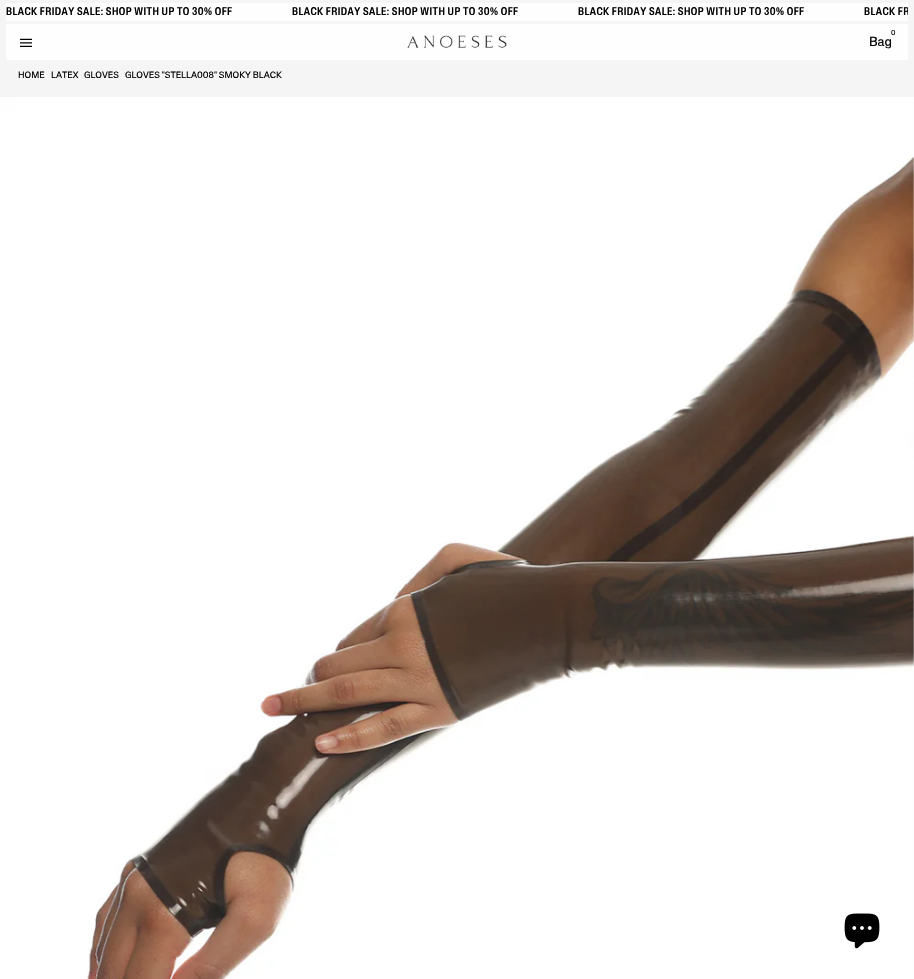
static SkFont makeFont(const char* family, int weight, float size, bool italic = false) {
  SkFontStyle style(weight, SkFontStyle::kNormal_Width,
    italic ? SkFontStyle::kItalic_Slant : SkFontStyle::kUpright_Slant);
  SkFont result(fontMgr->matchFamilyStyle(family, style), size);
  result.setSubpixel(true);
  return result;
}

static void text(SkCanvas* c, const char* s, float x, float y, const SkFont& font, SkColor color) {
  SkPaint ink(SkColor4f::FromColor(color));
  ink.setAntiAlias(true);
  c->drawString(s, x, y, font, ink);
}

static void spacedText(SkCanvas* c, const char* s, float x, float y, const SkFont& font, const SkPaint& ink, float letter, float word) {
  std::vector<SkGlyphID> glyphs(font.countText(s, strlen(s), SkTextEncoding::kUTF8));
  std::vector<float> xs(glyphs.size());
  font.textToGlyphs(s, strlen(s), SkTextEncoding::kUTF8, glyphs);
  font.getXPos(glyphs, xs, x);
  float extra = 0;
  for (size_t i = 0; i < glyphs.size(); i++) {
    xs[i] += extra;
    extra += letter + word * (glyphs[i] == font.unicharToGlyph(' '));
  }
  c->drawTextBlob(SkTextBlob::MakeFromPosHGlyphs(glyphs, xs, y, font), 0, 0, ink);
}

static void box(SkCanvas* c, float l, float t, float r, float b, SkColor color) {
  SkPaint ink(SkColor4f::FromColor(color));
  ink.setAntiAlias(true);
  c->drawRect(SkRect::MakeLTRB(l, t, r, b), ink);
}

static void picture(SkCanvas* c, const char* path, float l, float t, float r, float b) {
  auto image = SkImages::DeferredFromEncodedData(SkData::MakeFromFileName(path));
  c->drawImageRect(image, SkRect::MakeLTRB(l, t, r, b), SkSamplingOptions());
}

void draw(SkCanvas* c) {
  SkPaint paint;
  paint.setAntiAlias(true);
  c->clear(0xfff5f5f5);
  box(c, 6, 3, 908, 21, 0xfffefefe);
  SkFont face1 = makeFont("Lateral", 500, 11);
  paint.setColor(0xff000000);
  spacedText(c, "BLACK FRIDAY SALE: SHOP WITH UP TO 30% OFF", 6, 15, face1, paint, 0.45f, 0);
  spacedText(c, "BLACK FRIDAY SALE: SHOP WITH UP TO 30% OFF", 292, 15, face1, paint, 0.45f, 0);
  spacedText(c, "BLACK FRIDAY SALE: SHOP WITH UP TO 30% OFF", 578, 15, face1, paint, 0.45f, 0);
  c->save();
  c->clipRect(SkRect::MakeLTRB(6, 4, 908, 19));
  spacedText(c, "BLACK FR", 864, 15, face1, paint, 0.45f, 0);
  c->restore();
  box(c, 6, 24, 908, 60, 0xfffefefe);
  picture(c, "img_01.png", 20, 38, 32, 47);
  picture(c, "img_02.png", 407, 35, 507, 48);
  SkFont face2 = makeFont("Lateral", 400, 7);
  text(c, "0", 891, 35, face2, 0xff000000);
  SkFont face3 = makeFont("Lateral", 400, 13);
  text(c, "Bag", 869, 46, face3, 0xff000000);
  SkFont face4 = makeFont("Lateral", 400, 9);
  text(c, "HOME", 18, 78, face4, 0xff000000);
  text(c, "LATEX", 51, 78, face4, 0xff000000);
  text(c, "GLOVES", 84, 78, face4, 0xff000000);
  text(c, "GLOVES \"STELLA008\" SMOKY BLACK", 125, 78, face4, 0xff000000);
  picture(c, "img_03.png", 0, 97, 914, 979);
  picture(c, "img_04.png", 844, 913, 880, 949);
}
